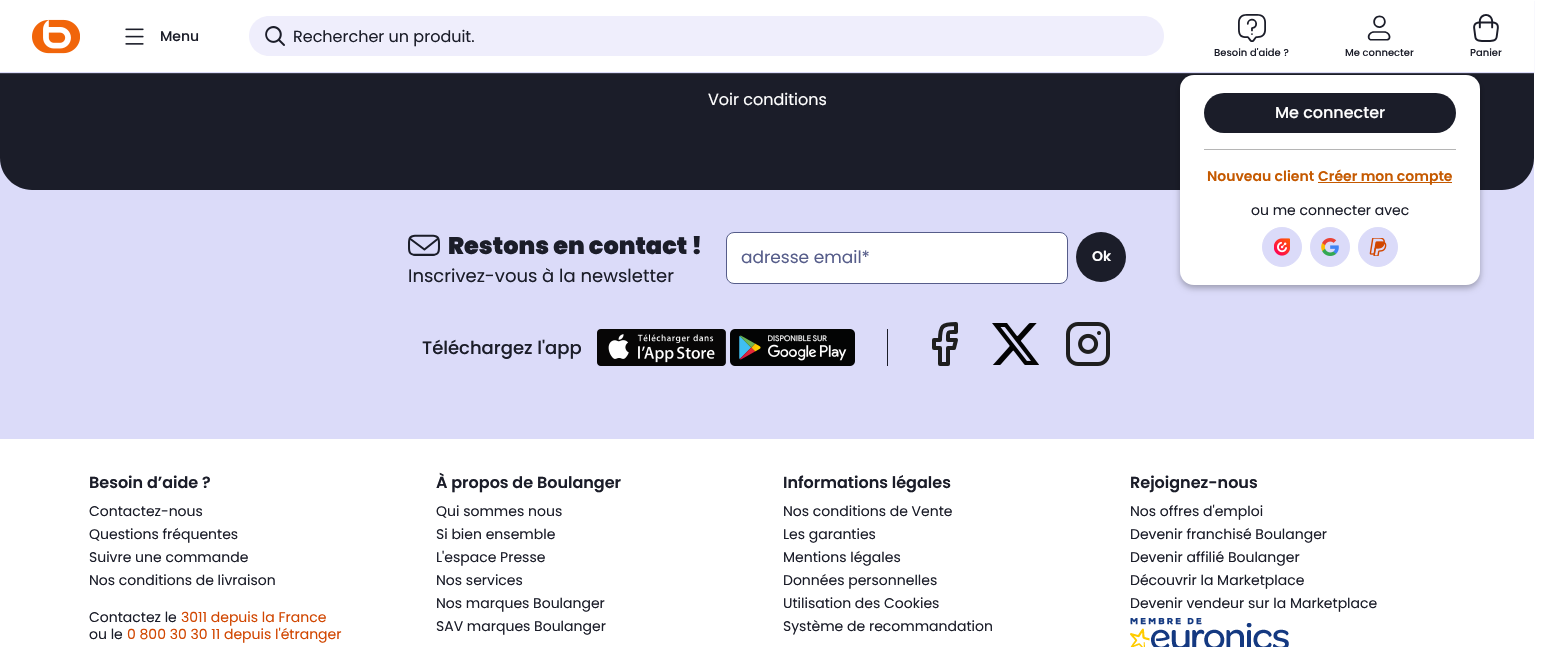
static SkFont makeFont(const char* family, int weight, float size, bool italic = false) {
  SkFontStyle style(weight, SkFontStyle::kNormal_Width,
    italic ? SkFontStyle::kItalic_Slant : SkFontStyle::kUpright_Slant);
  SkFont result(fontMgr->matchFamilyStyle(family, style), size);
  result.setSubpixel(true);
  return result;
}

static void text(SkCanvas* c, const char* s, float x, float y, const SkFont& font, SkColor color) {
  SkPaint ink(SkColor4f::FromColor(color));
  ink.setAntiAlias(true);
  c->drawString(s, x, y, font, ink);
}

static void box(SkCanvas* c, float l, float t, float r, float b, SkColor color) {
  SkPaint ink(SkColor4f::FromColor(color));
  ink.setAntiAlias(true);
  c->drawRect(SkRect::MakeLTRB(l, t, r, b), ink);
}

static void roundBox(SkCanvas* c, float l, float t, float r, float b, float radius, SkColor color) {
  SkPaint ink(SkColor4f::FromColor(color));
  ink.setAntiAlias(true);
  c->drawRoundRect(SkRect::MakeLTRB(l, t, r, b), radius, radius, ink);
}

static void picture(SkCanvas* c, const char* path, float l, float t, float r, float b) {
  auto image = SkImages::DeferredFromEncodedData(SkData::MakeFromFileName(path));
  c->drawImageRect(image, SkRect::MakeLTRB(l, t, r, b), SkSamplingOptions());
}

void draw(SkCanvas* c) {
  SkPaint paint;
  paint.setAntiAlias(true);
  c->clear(0xffffffff);
  box(c, 0, 158, 1534, 439, 0xffdbdbf9);
  paint.setColor(0xff1b1d29);
  c->drawPath(SkPathBuilder().moveTo(0, -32).lineTo(1534, -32).lineTo(1534, 158).cubicTo(1534, 175.5f, 1519.5f, 190, 1502, 190).lineTo(32, 190).cubicTo(14.5f, 190, 0, 175.5f, 0, 158).close().detach(), paint);
  paint.setColor(0xffdbdbf9);
  paint.setMaskFilter(SkMaskFilter::MakeBlur(kNormal_SkBlurStyle, 0.5f));
  c->drawRect(SkRect::MakeLTRB(0, 1, 1534, 73), paint);
  paint.setMaskFilter(nullptr);
  box(c, 0, 0, 1534, 72, 0xffffffff);
  picture(c, "img_01.png", 32, 19, 80, 54);
  picture(c, "img_02.png", 125, 28, 144, 45);
  SkFont face1 = makeFont("Poppins", 500, 14);
  text(c, "Menu", 160, 41, face1, 0xff1b1d29);
  paint.setColor(0xffefeefc);
  c->drawPath(SkPathBuilder().moveTo(269, 16).lineTo(293, 16).lineTo(293, 56).lineTo(269, 56).cubicTo(258, 56, 249, 47, 249, 36).cubicTo(249, 25, 258, 16, 269, 16).close().detach(), paint);
  picture(c, "img_03.png", 265, 26, 285, 46);
  c->drawPath(SkPathBuilder().moveTo(293, 16).lineTo(1144, 16).cubicTo(1155, 16, 1164, 25, 1164, 36).cubicTo(1164, 47, 1155, 56, 1144, 56).lineTo(293, 56).close().detach(), paint);
  SkFont face2 = makeFont("Poppins", 400, 16);
  text(c, "Rechercher un produit.", 293, 42, face2, 0xff1b1d29);
  picture(c, "img_04.png", 1238, 14, 1266, 42);
  SkFont face3 = makeFont("Poppins", 500, 10);
  text(c, "Besoin d'aide ?", 1214, 56, face3, 0xff1b1d29);
  picture(c, "img_05.png", 1473, 14, 1499, 42);
  text(c, "Panier", 1470, 56, face3, 0xff1b1d29);
  picture(c, "img_06.png", 1367, 15, 1391, 41);
  text(c, "Me connecter", 1345, 56, face3, 0xff1b1d29);
  paint.setColor(0x4a000000);
  paint.setMaskFilter(SkMaskFilter::MakeBlur(kNormal_SkBlurStyle, 3));
  c->drawRoundRect(SkRect::MakeLTRB(1180, 78, 1480, 288), 14, 14, paint);
  paint.setMaskFilter(nullptr);
  roundBox(c, 1180, 75, 1480, 285, 14, 0xffffffff);
  box(c, 1204, 149, 1456, 150, 0xffb5b5b5);
  roundBox(c, 1204, 93, 1456, 133, 20, 0xff1b1d29);
  SkFont face4 = makeFont("Poppins", 500, 16);
  text(c, "Me connecter", 1275, 118, face4, 0xffffffff);
  SkFont face5 = makeFont("Poppins", 600, 14);
  text(c, "Nouveau client", 1207, 181, face5, 0xffc55900);
  box(c, 1318, 182, 1452, 183, 0xffc55900);
  text(c, "Créer mon compte", 1318, 181, face5, 0xffc55900);
  SkFont face6 = makeFont("Poppins", 400, 14);
  text(c, "ou me connecter avec", 1251, 215, face6, 0xff1b1d29);
  paint.setColor(0xffdbdbf9);
  c->drawCircle(1282, 247, 19.5f, paint);
  paint.setStyle(SkPaint::kStroke_Style);
  paint.setStrokeWidth(1);
  c->drawCircle(1282, 247, 19.5f, paint);
  picture(c, "img_07.png", 1274, 238, 1290, 256);
  paint.setStyle(SkPaint::kFill_Style);
  c->drawCircle(1330, 247, 19.5f, paint);
  paint.setStyle(SkPaint::kStroke_Style);
  c->drawCircle(1330, 247, 19.5f, paint);
  picture(c, "img_08.png", 1321, 238, 1339, 256);
  paint.setStyle(SkPaint::kFill_Style);
  c->drawCircle(1378, 247, 19.5f, paint);
  paint.setStyle(SkPaint::kStroke_Style);
  c->drawCircle(1378, 247, 19.5f, paint);
  picture(c, "img_09.png", 1369, 238, 1387, 256);
  text(c, "Voir conditions", 708, 105, face2, 0xffffffff);
  picture(c, "img_10.png", 408, 234, 440, 256);
  SkFont face7 = makeFont("Poppins", 900, 24);
  text(c, "Restons en contact !", 448, 254, face7, 0xff1b1d29);
  SkFont face8 = makeFont("Poppins", 400, 18);
  text(c, "Inscrivez-vous à la newsletter", 408, 282, face8, 0xff1b1d29);
  paint.setStyle(SkPaint::kFill_Style);
  paint.setColor(0xffffffff);
  c->drawRoundRect(SkRect::MakeLTRB(726.5f, 232.5f, 1067.5f, 283.5f), 7.5f, 7.5f, paint);
  paint.setStyle(SkPaint::kStroke_Style);
  paint.setColor(0xff565d8a);
  c->drawRoundRect(SkRect::MakeLTRB(726.5f, 232.5f, 1067.5f, 283.5f), 7.5f, 7.5f, paint);
  SkFont face9 = makeFont("Poppins", 400, 17);
  text(c, "adresse email*", 741, 263, face9, 0xff565d8a);
  paint.setStyle(SkPaint::kFill_Style);
  paint.setColor(0xff1b1d29);
  c->drawCircle(1101, 257, 25, paint);
  text(c, "Ok", 1092, 261, face5, 0xffffffff);
  SkFont face10 = makeFont("Poppins", 500, 18);
  text(c, "Téléchargez l'app", 422, 354, face10, 0xff1b1d29);
  box(c, 887, 329, 888, 366, 0xff1b1d29);
  picture(c, "img_11.png", 597, 329, 726, 366);
  picture(c, "img_12.png", 730, 329, 855, 366);
  paint.setStyle(SkPaint::kStroke_Style);
  paint.setStrokeWidth(4);
  paint.setStrokeCap(SkPaint::kRound_Cap);
  paint.setStrokeJoin(SkPaint::kRound_Join);
  paint.setColor(0xff1e1e1e);
  c->drawPath(SkPathBuilder().moveTo(956, 324).cubicTo(942, 324, 940, 326, 940, 340).lineTo(934, 340).lineTo(934, 348).lineTo(940, 348).lineTo(940, 364).lineTo(948, 364).lineTo(948, 348).lineTo(954, 348).lineTo(956, 340).lineTo(948, 340).cubicTo(948, 331, 947, 332, 956, 332).close().detach(), paint);
  picture(c, "img_13.png", 992, 323, 1039, 365);
  picture(c, "img_14.png", 1066, 322, 1110, 366);
  SkFont face11 = makeFont("Poppins", 600, 16);
  text(c, "Besoin d’aide ?", 89, 488, face11, 0xff1b1d29);
  text(c, "Contactez-nous", 89, 516, face6, 0xff1b1d29);
  text(c, "Questions fréquentes", 89, 539, face6, 0xff1b1d29);
  text(c, "Suivre une commande", 89, 562, face6, 0xff1b1d29);
  text(c, "Nos conditions de livraison", 89, 585, face6, 0xff1b1d29);
  text(c, "Contactez le", 89, 622, face6, 0xff1b1d29);
  text(c, "3011 depuis la France", 181, 622, face6, 0xffd14600);
  text(c, "ou le", 89, 639, face6, 0xff1b1d29);
  text(c, "0 800 30 30 11 depuis l'étranger", 127, 639, face6, 0xffd14600);
  text(c, "À propos de Boulanger", 436, 488, face11, 0xff1b1d29);
  text(c, "Qui sommes nous", 436, 516, face6, 0xff1b1d29);
  text(c, "Si bien ensemble", 436, 539, face6, 0xff1b1d29);
  text(c, "L'espace Presse", 436, 562, face6, 0xff1b1d29);
  text(c, "Nos services", 436, 585, face6, 0xff1b1d29);
  text(c, "Nos marques Boulanger", 436, 608, face6, 0xff1b1d29);
  text(c, "SAV marques Boulanger", 436, 631, face6, 0xff1b1d29);
  text(c, "Informations légales", 783, 488, face11, 0xff1b1d29);
  text(c, "Nos conditions de Vente", 783, 516, face6, 0xff1b1d29);
  text(c, "Les garanties", 783, 539, face6, 0xff1b1d29);
  text(c, "Mentions légales", 783, 562, face6, 0xff1b1d29);
  text(c, "Données personnelles", 783, 585, face6, 0xff1b1d29);
  text(c, "Utilisation des Cookies", 783, 608, face6, 0xff1b1d29);
  text(c, "Système de recommandation", 783, 631, face6, 0xff1b1d29);
  text(c, "Rejoignez-nous", 1130, 488, face11, 0xff1b1d29);
  text(c, "Nos offres d'emploi", 1130, 516, face6, 0xff1b1d29);
  text(c, "Devenir franchisé Boulanger", 1130, 539, face6, 0xff1b1d29);
  text(c, "Devenir affilié Boulanger", 1130, 562, face6, 0xff1b1d29);
  text(c, "Découvrir la Marketplace", 1130, 585, face6, 0xff1b1d29);
  text(c, "Devenir vendeur sur la Marketplace", 1130, 608, face6, 0xff1b1d29);
  picture(c, "img_15.png", 1130, 618, 1289, 647);
}
